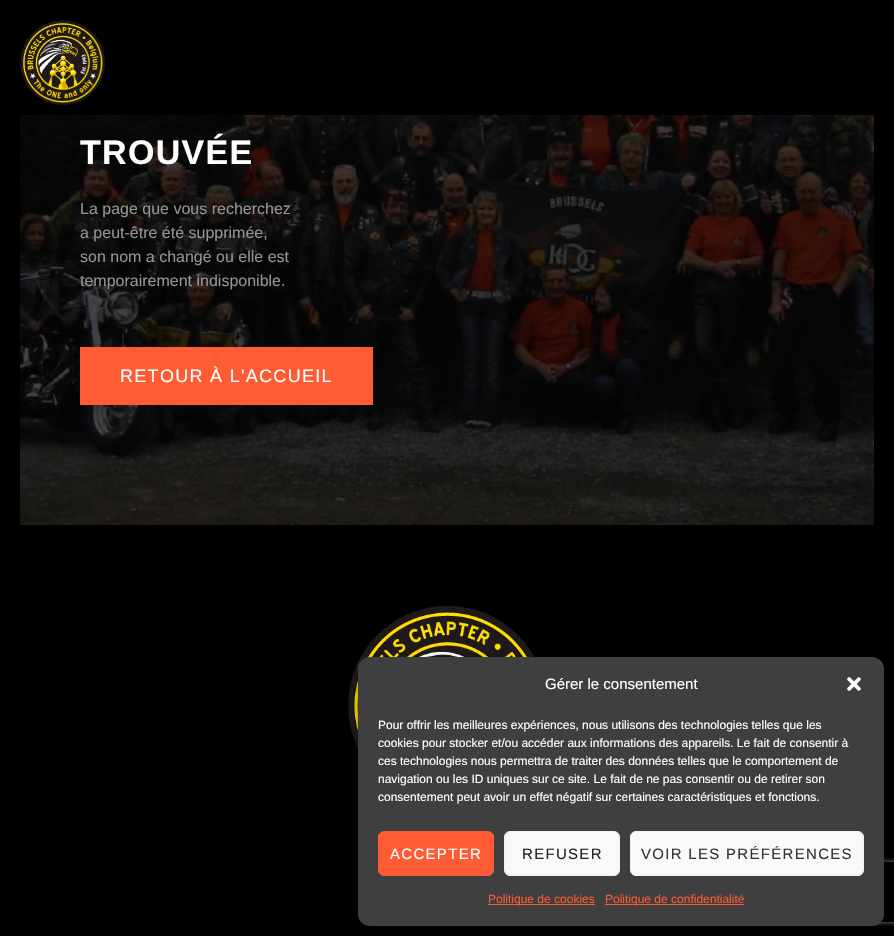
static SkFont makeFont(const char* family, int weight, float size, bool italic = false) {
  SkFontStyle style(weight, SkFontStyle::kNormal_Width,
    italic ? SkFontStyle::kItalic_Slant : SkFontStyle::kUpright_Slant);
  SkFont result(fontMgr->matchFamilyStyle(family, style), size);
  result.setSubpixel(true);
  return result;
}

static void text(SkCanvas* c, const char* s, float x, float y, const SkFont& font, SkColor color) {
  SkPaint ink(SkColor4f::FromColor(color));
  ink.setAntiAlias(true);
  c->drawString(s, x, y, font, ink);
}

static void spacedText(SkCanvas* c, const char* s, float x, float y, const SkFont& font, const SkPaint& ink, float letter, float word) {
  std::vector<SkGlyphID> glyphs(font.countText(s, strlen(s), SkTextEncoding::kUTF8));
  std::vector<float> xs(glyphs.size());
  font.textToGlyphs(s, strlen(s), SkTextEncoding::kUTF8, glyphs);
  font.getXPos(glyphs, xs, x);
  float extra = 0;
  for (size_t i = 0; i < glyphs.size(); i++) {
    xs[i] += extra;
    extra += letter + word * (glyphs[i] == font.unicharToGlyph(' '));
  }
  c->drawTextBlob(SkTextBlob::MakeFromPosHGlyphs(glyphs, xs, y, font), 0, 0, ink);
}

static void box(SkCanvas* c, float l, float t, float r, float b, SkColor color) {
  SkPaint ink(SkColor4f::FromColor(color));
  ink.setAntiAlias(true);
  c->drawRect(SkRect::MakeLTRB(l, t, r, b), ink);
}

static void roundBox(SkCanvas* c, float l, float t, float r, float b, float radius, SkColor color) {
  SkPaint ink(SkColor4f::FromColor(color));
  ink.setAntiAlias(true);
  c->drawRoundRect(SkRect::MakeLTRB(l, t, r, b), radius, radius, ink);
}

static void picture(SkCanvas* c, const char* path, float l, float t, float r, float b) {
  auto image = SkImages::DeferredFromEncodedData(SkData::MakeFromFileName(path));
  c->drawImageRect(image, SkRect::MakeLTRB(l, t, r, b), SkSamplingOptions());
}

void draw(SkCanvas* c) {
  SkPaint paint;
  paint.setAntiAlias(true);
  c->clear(0xff000000);
  picture(c, "img_01.png", 20, 20, 105, 105);
  picture(c, "img_02.png", 20, 115, 874, 525);
  SkFont face1 = makeFont("Liberation Sans", 700, 34);
  paint.setColor(0xffffffff);
  spacedText(c, "TROUVÉE", 80, 164, face1, paint, 1.3f, 0);
  SkFont face2 = makeFont("Liberation Sans", 400, 16);
  text(c, "La page que vous recherchez", 80, 214, face2, 0xff959595);
  text(c, "a peut-être été supprimée,", 80, 238, face2, 0xff959595);
  text(c, "son nom a changé ou elle est", 80, 262, face2, 0xff959595);
  text(c, "temporairement indisponible.", 80, 286, face2, 0xff959595);
  box(c, 80, 347, 373, 405, 0xffff5b35);
  SkFont face3 = makeFont("Liberation Sans", 400, 18);
  spacedText(c, "RETOUR À L'ACCUEIL", 120, 382, face3, paint, 1.3f, 0);
  picture(c, "img_03.png", 348, 606, 535, 748);
  paint.setColor(0x3b000000);
  paint.setMaskFilter(SkMaskFilter::MakeBlur(kNormal_SkBlurStyle, 3));
  c->drawRoundRect(SkRect::MakeLTRB(358, 663, 884, 932), 12, 12, paint);
  paint.setMaskFilter(nullptr);
  paint.setColor(0x30000000);
  paint.setMaskFilter(SkMaskFilter::MakeBlur(kNormal_SkBlurStyle, 10));
  c->drawRoundRect(SkRect::MakeLTRB(358, 667, 884, 936), 12, 12, paint);
  paint.setMaskFilter(nullptr);
  c->save();
  c->clipPath(SkPathBuilder(SkPathFillType::kEvenOdd).moveTo(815, 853).lineTo(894, 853).lineTo(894, 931).lineTo(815, 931).close().moveTo(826, 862).lineTo(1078, 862).cubicTo(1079, 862, 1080, 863, 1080, 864).lineTo(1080, 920).cubicTo(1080, 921, 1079, 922, 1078, 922).lineTo(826, 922).cubicTo(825, 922, 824, 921, 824, 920).lineTo(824, 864).cubicTo(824, 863, 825, 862, 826, 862).close().detach(), true);
  paint.setColor(0xff808080);
  paint.setMaskFilter(SkMaskFilter::MakeBlur(kNormal_SkBlurStyle, 2.5f));
  c->drawRoundRect(SkRect::MakeLTRB(824, 862, 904, 922), 2, 2, paint);
  paint.setMaskFilter(nullptr);
  c->restore();
  roundBox(c, 358, 657, 884, 926, 12, 0xff3f3f3f);
  SkFont face4 = makeFont("Liberation Sans", 400, 15);
  text(c, "Gérer le consentement", 545, 689, face4, 0xffffffff);
  picture(c, "img_04.png", 847, 677, 861, 691);
  SkFont face5 = makeFont("Liberation Sans", 400, 12);
  text(c, "Pour offrir les meilleures expériences, nous utilisons des technologies telles que les", 378, 729, face5, 0xffffffff);
  text(c, "cookies pour stocker et/ou accéder aux informations des appareils. Le fait de consentir à", 378, 747, face5, 0xffffffff);
  text(c, "ces technologies nous permettra de traiter des données telles que le comportement de", 378, 765, face5, 0xffffffff);
  text(c, "navigation ou les ID uniques sur ce site. Le fait de ne pas consentir ou de retirer son", 378, 783, face5, 0xffffffff);
  text(c, "consentement peut avoir un effet négatif sur certaines caractéristiques et fonctions.", 378, 801, face5, 0xffffffff);
  paint.setColor(0xffff5b35);
  c->drawRoundRect(SkRect::MakeLTRB(378.5f, 831.5f, 493.5f, 875.5f), 5.5f, 5.5f, paint);
  paint.setStyle(SkPaint::kStroke_Style);
  paint.setStrokeWidth(1);
  c->drawRoundRect(SkRect::MakeLTRB(378.5f, 831.5f, 493.5f, 875.5f), 5.5f, 5.5f, paint);
  paint.setStyle(SkPaint::kFill_Style);
  paint.setColor(0xffffffff);
  spacedText(c, "ACCEPTER", 390, 859, face4, paint, 1.3f, 0);
  paint.setColor(0xfff9f9f9);
  c->drawRoundRect(SkRect::MakeLTRB(504.5f, 831.5f, 619.5f, 875.5f), 5.5f, 5.5f, paint);
  paint.setStyle(SkPaint::kStroke_Style);
  paint.setColor(0xfff2f2f2);
  c->drawRoundRect(SkRect::MakeLTRB(504.5f, 831.5f, 619.5f, 875.5f), 5.5f, 5.5f, paint);
  paint.setStyle(SkPaint::kFill_Style);
  paint.setColor(0xff222222);
  spacedText(c, "REFUSER", 522, 859, face4, paint, 1.3f, 0);
  paint.setColor(0xfff9f9f9);
  c->drawRoundRect(SkRect::MakeLTRB(630.5f, 831.5f, 863.5f, 875.5f), 5.5f, 5.5f, paint);
  paint.setStyle(SkPaint::kStroke_Style);
  paint.setColor(0xfff2f2f2);
  c->drawRoundRect(SkRect::MakeLTRB(630.5f, 831.5f, 863.5f, 875.5f), 5.5f, 5.5f, paint);
  paint.setStyle(SkPaint::kFill_Style);
  paint.setColor(0xff333333);
  spacedText(c, "VOIR LES PRÉFÉRENCES", 641, 859, face4, paint, 1.3f, 0);
  box(c, 488, 904, 595, 905, 0xffff5b35);
  text(c, "Politique de cookies", 488, 903, face5, 0xffff5b35);
  box(c, 605, 904, 744, 905, 0xffff5b35);
  text(c, "Politique de confidentialité", 605, 903, face5, 0xffff5b35);
}
